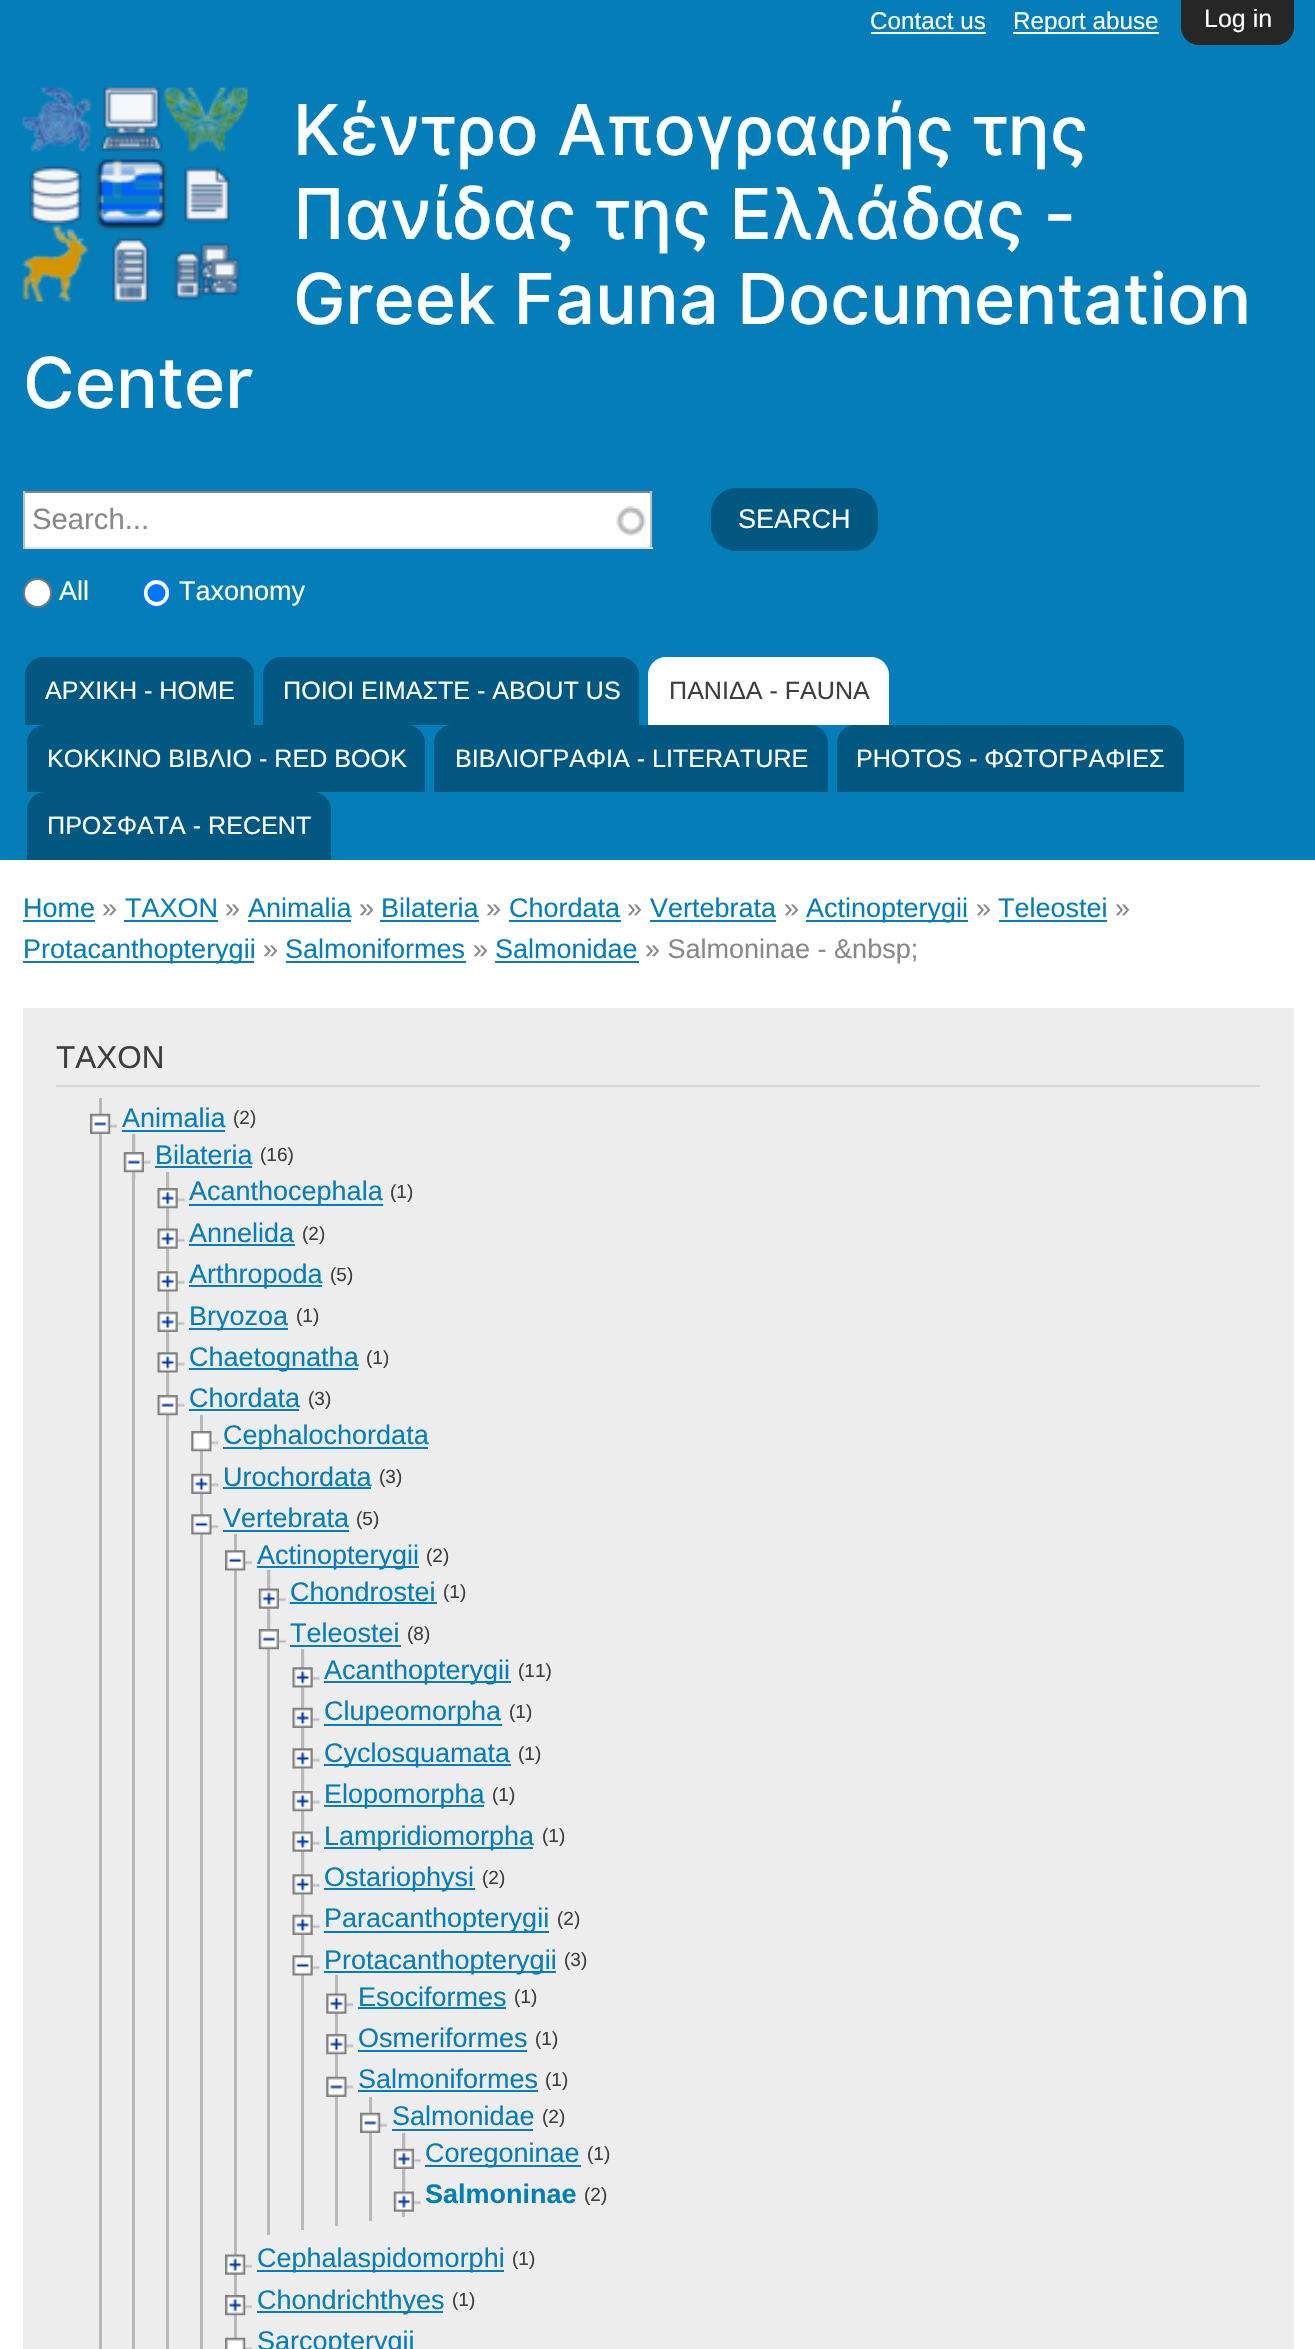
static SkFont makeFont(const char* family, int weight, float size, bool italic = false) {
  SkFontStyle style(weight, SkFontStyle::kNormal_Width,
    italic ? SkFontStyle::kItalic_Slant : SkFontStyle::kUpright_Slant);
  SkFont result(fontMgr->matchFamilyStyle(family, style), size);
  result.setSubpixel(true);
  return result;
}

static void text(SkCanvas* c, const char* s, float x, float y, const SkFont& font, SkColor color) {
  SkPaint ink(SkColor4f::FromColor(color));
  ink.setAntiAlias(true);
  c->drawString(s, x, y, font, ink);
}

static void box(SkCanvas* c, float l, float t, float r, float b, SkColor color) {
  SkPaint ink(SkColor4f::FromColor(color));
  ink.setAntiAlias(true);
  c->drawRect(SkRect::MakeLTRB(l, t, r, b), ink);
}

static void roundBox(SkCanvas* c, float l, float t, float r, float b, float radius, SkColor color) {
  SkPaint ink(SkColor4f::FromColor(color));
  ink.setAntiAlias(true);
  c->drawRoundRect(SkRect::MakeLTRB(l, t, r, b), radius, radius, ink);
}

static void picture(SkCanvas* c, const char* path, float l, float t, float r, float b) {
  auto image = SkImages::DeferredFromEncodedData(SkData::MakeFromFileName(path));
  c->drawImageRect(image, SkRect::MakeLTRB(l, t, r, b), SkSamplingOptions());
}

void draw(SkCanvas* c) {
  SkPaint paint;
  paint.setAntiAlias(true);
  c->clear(0xffffffff);
  box(c, 0, 0, 1315, 860, 0xff047db8);
  paint.setColor(0xff262626);
  c->drawPath(SkPathBuilder().moveTo(1181, 0).lineTo(1294, 0).lineTo(1294, 27).cubicTo(1294, 37, 1286, 45, 1276, 45).lineTo(1199, 45).cubicTo(1189, 45, 1181, 37, 1181, 27).close().detach(), paint);
  SkFont face1 = makeFont("Liberation Sans", 400, 25);
  text(c, "Log in", 1204, 27, face1, 0xffffffff);
  SkFont face2 = makeFont("Liberation Sans", 400, 24.25f);
  text(c, "Contact us", 870, 29, face2, 0xffffffff);
  box(c, 871, 32, 986, 34, 0xffffffff);
  box(c, 1013, 32, 1159, 34, 0xffffffff);
  text(c, "Report abuse", 1013, 29, face2, 0xffffffff);
  picture(c, "img_01.png", 22, 87, 248, 302);
  SkFont face3 = makeFont("Inter", 500, 70.25f);
  text(c, "Κέντρο Απογραφής της", 293, 155, face3, 0xffffffff);
  text(c, "Πανίδας της Ελλάδας -", 293, 239, face3, 0xffffffff);
  text(c, "Greek Fauna Documentation", 293, 324, face3, 0xffffffff);
  text(c, "Center", 23, 408, face3, 0xffffffff);
  box(c, 25, 493, 650, 547, 0xffffffff);
  picture(c, "img_02.png", 616, 506, 647, 536);
  box(c, 23, 491, 653, 493, 0xff848484);
  box(c, 650, 491, 652, 549, 0xffc1c1c1);
  box(c, 23, 547, 653, 549, 0xffe1e1e1);
  box(c, 23, 491, 25, 549, 0xffc1c1c1);
  SkFont face4 = makeFont("Liberation Sans", 400, 29.25f);
  text(c, "Search...", 32, 529, face4, 0xff888888);
  roundBox(c, 711, 488, 878, 551, 25, 0xff035881);
  SkFont face5 = makeFont("Liberation Sans", 400, 27);
  text(c, "SEARCH", 738, 528, face5, 0xffffffff);
  paint.setColor(0xffffffff);
  c->drawRoundRect(SkRect::MakeLTRB(24, 579, 51, 607), 13.5f, 13.5f, paint);
  paint.setStyle(SkPaint::kStroke_Style);
  paint.setStrokeWidth(2);
  paint.setColor(0xff767676);
  c->drawRoundRect(SkRect::MakeLTRB(24, 579, 51, 607), 13.5f, 13.5f, paint);
  text(c, "All", 59, 600, face5, 0xffffffff);
  paint.setStyle(SkPaint::kFill_Style);
  paint.setColor(0xffffffff);
  c->drawRoundRect(SkRect::MakeLTRB(143, 579, 170, 607), 13.5f, 13.5f, paint);
  paint.setStyle(SkPaint::kStroke_Style);
  paint.setColor(0xff0075ff);
  c->drawRoundRect(SkRect::MakeLTRB(143, 579, 170, 607), 13.5f, 13.5f, paint);
  paint.setStyle(SkPaint::kFill_Style);
  c->drawCircle(156.5f, 593, 9, paint);
  text(c, "Taxonomy", 179, 600, face5, 0xffffffff);
  paint.setColor(0xff035881);
  c->drawPath(SkPathBuilder().moveTo(43, 657).lineTo(236, 657).cubicTo(246, 657, 254, 665, 254, 675).lineTo(254, 725).lineTo(25, 725).lineTo(25, 675).cubicTo(25, 665, 33, 657, 43, 657).close().detach(), paint);
  SkFont face6 = makeFont("Liberation Sans", 400, 25.1f);
  text(c, "ΑΡΧΙΚΗ - HOME", 45, 699, face6, 0xffffffff);
  c->drawPath(SkPathBuilder().moveTo(281, 657).lineTo(621, 657).cubicTo(631, 657, 639, 665, 639, 675).lineTo(639, 725).lineTo(263, 725).lineTo(263, 675).cubicTo(263, 665, 271, 657, 281, 657).close().detach(), paint);
  text(c, "ΠΟΙΟΙ ΕΙΜΑΣΤΕ - ABOUT US", 283, 699, face6, 0xffffffff);
  paint.setColor(0xffffffff);
  c->drawPath(SkPathBuilder().moveTo(666, 657).lineTo(871, 657).cubicTo(881, 657, 889, 665, 889, 675).lineTo(889, 725).lineTo(648, 725).lineTo(648, 675).cubicTo(648, 665, 656, 657, 666, 657).close().detach(), paint);
  text(c, "ΠΑΝΙΔΑ - FAUNA", 669, 699, face6, 0xff3e3e3e);
  paint.setColor(0xff035881);
  c->drawPath(SkPathBuilder().moveTo(45, 725).lineTo(407, 725).cubicTo(417, 725, 425, 733, 425, 743).lineTo(425, 792).lineTo(27, 792).lineTo(27, 743).cubicTo(27, 733, 35, 725, 45, 725).close().detach(), paint);
  text(c, "ΚΟΚΚΙΝΟ ΒΙΒΛΙΟ - RED BOOK", 47, 767, face6, 0xffffffff);
  c->drawPath(SkPathBuilder().moveTo(452, 725).lineTo(810, 725).cubicTo(820, 725, 828, 733, 828, 743).lineTo(828, 792).lineTo(434, 792).lineTo(434, 743).cubicTo(434, 733, 442, 725, 452, 725).close().detach(), paint);
  text(c, "ΒΙΒΛΙΟΓΡΑΦΙΑ - LITERATURE", 455, 767, face6, 0xffffffff);
  c->drawPath(SkPathBuilder().moveTo(855, 725).lineTo(1166, 725).cubicTo(1176, 725, 1184, 733, 1184, 743).lineTo(1184, 792).lineTo(837, 792).lineTo(837, 743).cubicTo(837, 733, 845, 725, 855, 725).close().detach(), paint);
  text(c, "PHOTOS - ΦΩΤΟΓΡΑΦΙΕΣ", 856, 767, face6, 0xffffffff);
  c->drawPath(SkPathBuilder().moveTo(45, 792).lineTo(313, 792).cubicTo(323, 792, 331, 800, 331, 810).lineTo(331, 860).lineTo(27, 860).lineTo(27, 810).cubicTo(27, 800, 35, 792, 45, 792).close().detach(), paint);
  text(c, "ΠΡΟΣΦΑΤΑ - RECENT", 47, 834, face6, 0xffffffff);
  text(c, "Home", 23, 917, face5, 0xff047db8);
  box(c, 23, 920, 95, 922, 0xff047db8);
  text(c, "»", 102, 917, face5, 0xff888888);
  text(c, "TAXON", 125, 917, face5, 0xff047db8);
  box(c, 124, 920, 218, 922, 0xff047db8);
  text(c, "»", 225, 917, face5, 0xff888888);
  text(c, "Animalia", 248, 917, face5, 0xff047db8);
  box(c, 248, 920, 351, 922, 0xff047db8);
  text(c, "»", 359, 917, face5, 0xff888888);
  text(c, "Bilateria", 381, 917, face5, 0xff047db8);
  box(c, 380, 920, 479, 922, 0xff047db8);
  text(c, "»", 486, 917, face5, 0xff888888);
  text(c, "Chordata", 509, 917, face5, 0xff047db8);
  box(c, 509, 920, 621, 922, 0xff047db8);
  text(c, "»", 627, 917, face5, 0xff888888);
  text(c, "Vertebrata", 650, 917, face5, 0xff047db8);
  box(c, 650, 920, 776, 922, 0xff047db8);
  text(c, "»", 784, 917, face5, 0xff888888);
  box(c, 806, 920, 968, 922, 0xff047db8);
  text(c, "Actinopterygii", 806, 917, face5, 0xff047db8);
  text(c, "»", 976, 917, face5, 0xff888888);
  text(c, "Teleostei", 998, 917, face5, 0xff047db8);
  box(c, 999, 920, 1107, 922, 0xff047db8);
  text(c, "»", 1115, 917, face5, 0xff888888);
  box(c, 23, 961, 254, 963, 0xff047db8);
  text(c, "Protacanthopterygii", 23, 958, face5, 0xff047db8);
  text(c, "»", 263, 958, face5, 0xff888888);
  text(c, "Salmoniformes", 285, 958, face5, 0xff047db8);
  box(c, 286, 961, 466, 963, 0xff047db8);
  text(c, "»", 473, 958, face5, 0xff888888);
  text(c, "Salmonidae", 495, 958, face5, 0xff047db8);
  box(c, 495, 961, 639, 963, 0xff047db8);
  text(c, "» Salmoninae - &nbsp;", 645, 958, face5, 0xff888888);
  box(c, 23, 1008, 1294, 2349, 0xffededed);
  box(c, 56, 1085, 1260, 1087, 0xffd6d6d6);
  SkFont face7 = makeFont("Liberation Sans", 400, 31.5f);
  text(c, "TAXON", 56, 1068, face7, 0xff3e3e3e);
  box(c, 99, 1098, 102, 2349, 0xffb9b9b9);
  picture(c, "img_03.png", 110, 1124, 117, 1128);
  picture(c, "img_04.png", 90, 1113, 111, 1134);
  text(c, "Animalia", 122, 1127, face5, 0xff047db8);
  box(c, 122, 1130, 225, 1132, 0xff047db8);
  SkFont face8 = makeFont("Liberation Sans", 400, 19);
  text(c, "(2)", 233, 1124, face8, 0xff3e3e3e);
  box(c, 132, 1134, 135, 2349, 0xffb9b9b9);
  picture(c, "img_05.png", 135, 1134, 151, 1179);
  picture(c, "img_06.png", 123, 1152, 144, 1173);
  text(c, "Bilateria", 155, 1164, face5, 0xff047db8);
  box(c, 155, 1166, 252, 1168, 0xff047db8);
  text(c, "(16)", 260, 1161, face8, 0xff3e3e3e);
  box(c, 166, 1172, 169, 2349, 0xffb9b9b9);
  picture(c, "img_07.png", 169, 1172, 185, 1213);
  picture(c, "img_08.png", 157, 1188, 178, 1209);
  box(c, 189, 1204, 383, 1206, 0xff047db8);
  text(c, "Acanthocephala", 189, 1200, face5, 0xff047db8);
  text(c, "(1)", 390, 1198, face8, 0xff3e3e3e);
  picture(c, "img_09.png", 169, 1213, 185, 1253);
  picture(c, "img_10.png", 157, 1228, 178, 1249);
  text(c, "Annelida", 189, 1242, face5, 0xff047db8);
  box(c, 189, 1244, 295, 1246, 0xff047db8);
  text(c, "(2)", 302, 1240, face8, 0xff3e3e3e);
  picture(c, "img_11.png", 169, 1253, 185, 1296);
  picture(c, "img_12.png", 157, 1271, 178, 1292);
  box(c, 189, 1285, 322, 1287, 0xff047db8);
  text(c, "Arthropoda", 189, 1283, face5, 0xff047db8);
  text(c, "(5)", 330, 1281, face8, 0xff3e3e3e);
  picture(c, "img_13.png", 169, 1296, 185, 1337);
  picture(c, "img_14.png", 157, 1311, 178, 1332);
  box(c, 189, 1328, 288, 1330, 0xff047db8);
  text(c, "Bryozoa", 189, 1325, face5, 0xff047db8);
  text(c, "(1)", 296, 1322, face8, 0xff3e3e3e);
  picture(c, "img_15.png", 169, 1336, 185, 1377);
  picture(c, "img_16.png", 157, 1352, 178, 1373);
  box(c, 189, 1368, 358, 1370, 0xff047db8);
  text(c, "Chaetognatha", 189, 1366, face5, 0xff047db8);
  text(c, "(1)", 366, 1364, face8, 0xff3e3e3e);
  picture(c, "img_17.png", 169, 1377, 185, 1422);
  picture(c, "img_18.png", 157, 1395, 178, 1416);
  text(c, "Chordata", 189, 1407, face5, 0xff047db8);
  box(c, 189, 1409, 299, 1411, 0xff047db8);
  text(c, "(3)", 308, 1405, face8, 0xff3e3e3e);
  box(c, 200, 1415, 203, 2349, 0xffb9b9b9);
  picture(c, "img_19.png", 211, 1441, 219, 1445);
  picture(c, "img_20.png", 191, 1431, 212, 1452);
  box(c, 223, 1447, 428, 1449, 0xff047db8);
  text(c, "Cephalochordata", 223, 1444, face5, 0xff047db8);
  picture(c, "img_21.png", 211, 1483, 219, 1487);
  picture(c, "img_22.png", 191, 1473, 212, 1494);
  text(c, "Urochordata", 223, 1486, face5, 0xff047db8);
  box(c, 223, 1487, 371, 1489, 0xff047db8);
  text(c, "(3)", 379, 1483, face8, 0xff3e3e3e);
  picture(c, "img_23.png", 211, 1525, 219, 1529);
  picture(c, "img_24.png", 191, 1514, 212, 1535);
  text(c, "Vertebrata", 223, 1527, face5, 0xff047db8);
  box(c, 223, 1530, 349, 1532, 0xff047db8);
  text(c, "(5)", 356, 1525, face8, 0xff3e3e3e);
  box(c, 234, 1534, 237, 2338, 0xffb9b9b9);
  picture(c, "img_25.png", 245, 1561, 252, 1565);
  picture(c, "img_26.png", 225, 1550, 246, 1571);
  box(c, 257, 1566, 419, 1568, 0xff047db8);
  text(c, "Actinopterygii", 257, 1564, face5, 0xff047db8);
  text(c, "(2)", 426, 1562, face8, 0xff3e3e3e);
  box(c, 267, 1570, 270, 2235, 0xffb9b9b9);
  picture(c, "img_27.png", 270, 1570, 286, 1614);
  picture(c, "img_28.png", 258, 1588, 279, 1609);
  text(c, "Chondrostei", 290, 1601, face5, 0xff047db8);
  box(c, 290, 1602, 437, 1604, 0xff047db8);
  text(c, "(1)", 443, 1598, face8, 0xff3e3e3e);
  picture(c, "img_29.png", 270, 1613, 286, 1643);
  picture(c, "img_30.png", 258, 1629, 279, 1650);
  text(c, "Teleostei", 290, 1642, face5, 0xff047db8);
  box(c, 290, 1645, 401, 1647, 0xff047db8);
  text(c, "(8)", 407, 1640, face8, 0xff3e3e3e);
  box(c, 301, 1649, 304, 2230, 0xffb9b9b9);
  picture(c, "img_11.png", 304, 1649, 320, 1692);
  picture(c, "img_31.png", 292, 1667, 313, 1688);
  box(c, 324, 1681, 511, 1683, 0xff047db8);
  text(c, "Acanthopterygii", 324, 1679, face5, 0xff047db8);
  text(c, "(11)", 518, 1677, face8, 0xff3e3e3e);
  picture(c, "img_13.png", 304, 1692, 320, 1733);
  picture(c, "img_32.png", 292, 1707, 313, 1728);
  box(c, 324, 1724, 502, 1726, 0xff047db8);
  text(c, "Clupeomorpha", 324, 1720, face5, 0xff047db8);
  text(c, "(1)", 509, 1718, face8, 0xff3e3e3e);
  picture(c, "img_15.png", 304, 1732, 320, 1773);
  picture(c, "img_33.png", 292, 1748, 313, 1769);
  box(c, 324, 1764, 511, 1766, 0xff047db8);
  text(c, "Cyclosquamata", 324, 1762, face5, 0xff047db8);
  text(c, "(1)", 518, 1760, face8, 0xff3e3e3e);
  picture(c, "img_34.png", 304, 1773, 320, 1816);
  picture(c, "img_35.png", 292, 1791, 313, 1812);
  box(c, 324, 1805, 484, 1807, 0xff047db8);
  text(c, "Elopomorpha", 324, 1803, face5, 0xff047db8);
  text(c, "(1)", 492, 1801, face8, 0xff3e3e3e);
  picture(c, "img_09.png", 304, 1816, 320, 1856);
  picture(c, "img_36.png", 292, 1831, 313, 1852);
  box(c, 324, 1847, 533, 1849, 0xff047db8);
  text(c, "Lampridiomorpha", 324, 1845, face5, 0xff047db8);
  text(c, "(1)", 542, 1842, face8, 0xff3e3e3e);
  picture(c, "img_11.png", 304, 1856, 320, 1899);
  picture(c, "img_37.png", 292, 1874, 313, 1895);
  box(c, 324, 1888, 475, 1890, 0xff047db8);
  text(c, "Ostariophysi", 324, 1886, face5, 0xff047db8);
  text(c, "(2)", 482, 1884, face8, 0xff3e3e3e);
  picture(c, "img_13.png", 304, 1899, 320, 1940);
  picture(c, "img_32.png", 292, 1914, 313, 1935);
  box(c, 324, 1931, 549, 1933, 0xff047db8);
  text(c, "Paracanthopterygii", 324, 1927, face5, 0xff047db8);
  text(c, "(2)", 557, 1925, face8, 0xff3e3e3e);
  picture(c, "img_38.png", 304, 1939, 320, 1970);
  picture(c, "img_39.png", 292, 1955, 313, 1976);
  box(c, 324, 1971, 556, 1973, 0xff047db8);
  text(c, "Protacanthopterygii", 324, 1969, face5, 0xff047db8);
  text(c, "(3)", 564, 1966, face8, 0xff3e3e3e);
  box(c, 335, 1975, 338, 2226, 0xffb9b9b9);
  picture(c, "img_40.png", 346, 2002, 354, 2007);
  picture(c, "img_41.png", 326, 1993, 347, 2014);
  text(c, "Esociformes", 358, 2006, face5, 0xff047db8);
  box(c, 358, 2007, 506, 2009, 0xff047db8);
  text(c, "(1)", 514, 2003, face8, 0xff3e3e3e);
  picture(c, "img_19.png", 346, 2044, 354, 2048);
  picture(c, "img_42.png", 326, 2034, 347, 2055);
  text(c, "Osmeriformes", 358, 2047, face5, 0xff047db8);
  box(c, 358, 2050, 527, 2052, 0xff047db8);
  text(c, "(1)", 535, 2045, face8, 0xff3e3e3e);
  picture(c, "img_43.png", 346, 2085, 354, 2089);
  picture(c, "img_44.png", 326, 2076, 347, 2097);
  text(c, "Salmoniformes", 358, 2088, face5, 0xff047db8);
  box(c, 358, 2090, 538, 2092, 0xff047db8);
  text(c, "(1)", 545, 2086, face8, 0xff3e3e3e);
  box(c, 369, 2097, 372, 2221, 0xffb9b9b9);
  picture(c, "img_03.png", 380, 2123, 387, 2127);
  picture(c, "img_04.png", 360, 2112, 381, 2133);
  text(c, "Salmonidae", 392, 2125, face5, 0xff047db8);
  box(c, 392, 2129, 533, 2131, 0xff047db8);
  text(c, "(2)", 542, 2123, face8, 0xff3e3e3e);
  box(c, 402, 2133, 405, 2217, 0xffb9b9b9);
  picture(c, "img_45.png", 405, 2133, 421, 2174);
  picture(c, "img_46.png", 393, 2148, 414, 2169);
  box(c, 425, 2165, 581, 2167, 0xff047db8);
  text(c, "Coregoninae", 425, 2162, face5, 0xff047db8);
  text(c, "(1)", 587, 2160, face8, 0xff3e3e3e);
  picture(c, "img_47.png", 405, 2173, 421, 2205);
  picture(c, "img_48.png", 393, 2191, 414, 2212);
  SkFont face9 = makeFont("Liberation Sans", 700, 27);
  text(c, "Salmoninae", 425, 2203, face9, 0xff047db8);
  text(c, "(2)", 584, 2201, face8, 0xff3e3e3e);
  picture(c, "img_49.png", 245, 2264, 252, 2268);
  picture(c, "img_50.png", 225, 2254, 246, 2275);
  box(c, 257, 2270, 504, 2272, 0xff047db8);
  text(c, "Cephalaspidomorphi", 257, 2267, face5, 0xff047db8);
  text(c, "(1)", 512, 2265, face8, 0xff3e3e3e);
  picture(c, "img_51.png", 245, 2305, 252, 2309);
  picture(c, "img_52.png", 225, 2295, 246, 2316);
  box(c, 257, 2311, 443, 2313, 0xff047db8);
  text(c, "Chondrichthyes", 257, 2309, face5, 0xff047db8);
  text(c, "(1)", 452, 2306, face8, 0xff3e3e3e);
  picture(c, "img_53.png", 245, 2347, 252, 2349);
  picture(c, "img_54.png", 225, 2337, 246, 2349);
  text(c, "Sarcopterygii", 257, 2350, face5, 0xff047db8);
}
